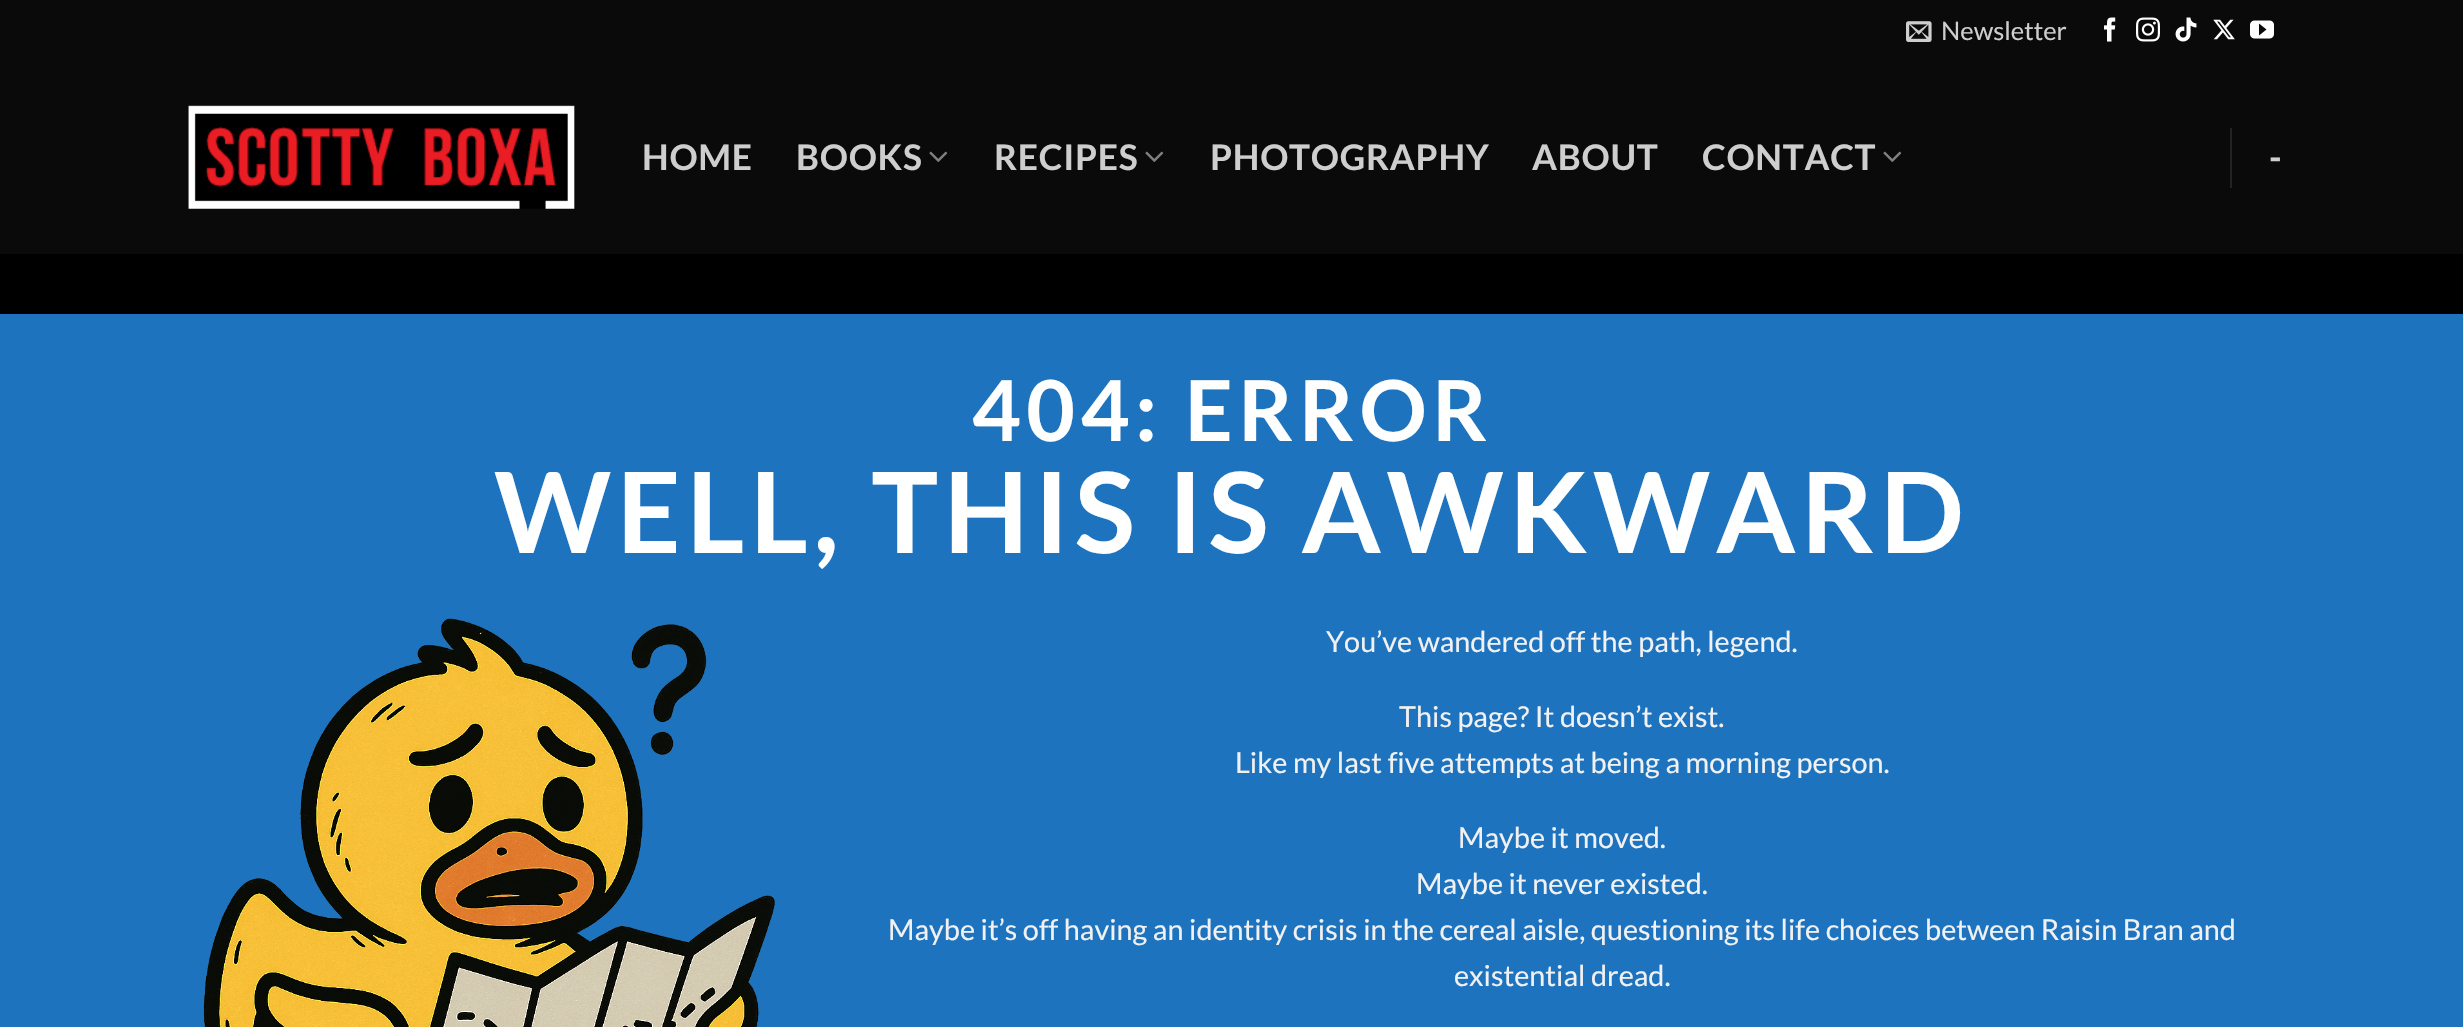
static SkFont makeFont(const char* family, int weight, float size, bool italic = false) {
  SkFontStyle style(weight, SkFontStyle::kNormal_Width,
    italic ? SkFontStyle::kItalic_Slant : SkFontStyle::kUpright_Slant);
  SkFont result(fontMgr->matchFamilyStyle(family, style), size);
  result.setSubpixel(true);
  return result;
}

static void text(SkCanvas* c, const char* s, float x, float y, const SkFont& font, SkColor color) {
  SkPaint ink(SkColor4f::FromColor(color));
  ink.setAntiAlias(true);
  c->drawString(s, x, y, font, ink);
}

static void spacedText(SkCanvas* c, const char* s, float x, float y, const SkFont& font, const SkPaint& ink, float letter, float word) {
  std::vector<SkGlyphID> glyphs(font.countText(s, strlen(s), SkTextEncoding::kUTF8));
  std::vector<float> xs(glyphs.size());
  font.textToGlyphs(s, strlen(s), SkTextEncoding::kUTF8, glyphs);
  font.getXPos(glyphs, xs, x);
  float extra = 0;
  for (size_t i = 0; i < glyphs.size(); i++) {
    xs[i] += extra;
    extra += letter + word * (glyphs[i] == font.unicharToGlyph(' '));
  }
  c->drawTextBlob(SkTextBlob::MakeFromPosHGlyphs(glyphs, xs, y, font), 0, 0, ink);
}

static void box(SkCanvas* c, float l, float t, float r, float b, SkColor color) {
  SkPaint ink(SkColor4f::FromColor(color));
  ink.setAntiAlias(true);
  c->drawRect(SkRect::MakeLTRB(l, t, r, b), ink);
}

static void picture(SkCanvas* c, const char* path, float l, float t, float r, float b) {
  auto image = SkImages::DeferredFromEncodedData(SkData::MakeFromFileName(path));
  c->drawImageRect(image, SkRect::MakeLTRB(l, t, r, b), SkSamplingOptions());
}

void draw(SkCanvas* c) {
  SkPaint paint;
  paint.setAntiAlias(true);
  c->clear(0xff000000);
  box(c, 0, 0, 2463, 254, 0xff0a0a0a);
  picture(c, "img_01.png", 1906, 21, 1932, 42);
  SkFont face1 = makeFont("Lato", 400, 25.5f);
  text(c, "Newsletter", 1941, 40, face1, 0xffcecece);
  picture(c, "img_02.png", 2104, 17, 2116, 42);
  picture(c, "img_03.png", 2136, 17, 2160, 42);
  picture(c, "img_04.png", 2175, 17, 2197, 42);
  picture(c, "img_05.png", 2213, 19, 2235, 40);
  picture(c, "img_06.png", 2250, 20, 2274, 39);
  picture(c, "img_07.png", 188, 105, 575, 209);
  SkFont face2 = makeFont("Lato", 700, 35.25f);
  paint.setColor(0xffcecece);
  spacedText(c, "HOME", 642, 170, face2, paint, 0.75f, 0);
  spacedText(c, "BOOKS", 796, 170, face2, paint, 0.75f, 0);
  picture(c, "img_08.png", 929, 151, 948, 162);
  spacedText(c, "RECIPES", 994, 170, face2, paint, 0.75f, 0);
  picture(c, "img_08.png", 1145, 151, 1164, 162);
  spacedText(c, "PHOTOGRAPHY", 1210, 170, face2, paint, 0.75f, 0);
  spacedText(c, "ABOUT", 1532, 170, face2, paint, 0.75f, 0);
  spacedText(c, "CONTACT", 1702, 170, face2, paint, 0.75f, 0);
  picture(c, "img_08.png", 1883, 151, 1902, 162);
  box(c, 2230, 128, 2232, 188, 0xff232323);
  spacedText(c, "-", 2269, 170, face2, paint, 0.75f, 0);
  box(c, 0, 314, 2463, 1027, 0xff1e73be);
  SkFont face3 = makeFont("Lato", 700, 84);
  paint.setColor(0xffffffff);
  spacedText(c, "404: ERROR", 972, 441, face3, paint, 5.6f, 0);
  SkFont face4 = makeFont("Lato", 700, 112);
  spacedText(c, "WELL, THIS IS AWKWARD", 494, 553, face4, paint, 5.6f, 0);
  picture(c, "img_09.png", 203, 618, 776, 1027);
  SkFont face5 = makeFont("Lato", 400, 28.8f);
  text(c, "You’ve wandered off the path, legend.", 1326, 652, face5, 0xfff1f1f1);
  text(c, "This page? It doesn’t exist.", 1399, 727, face5, 0xfff1f1f1);
  text(c, "Like my last five attempts at being a morning person.", 1235, 773, face5, 0xfff1f1f1);
  text(c, "Maybe it moved.", 1458, 848, face5, 0xfff1f1f1);
  text(c, "Maybe it never existed.", 1416, 894, face5, 0xfff1f1f1);
  text(c, "Maybe it’s off having an identity crisis in the cereal aisle, questioning its life choices between Raisin Bran and", 888, 940, face5, 0xfff1f1f1);
  text(c, "existential dread.", 1454, 986, face5, 0xfff1f1f1);
}
